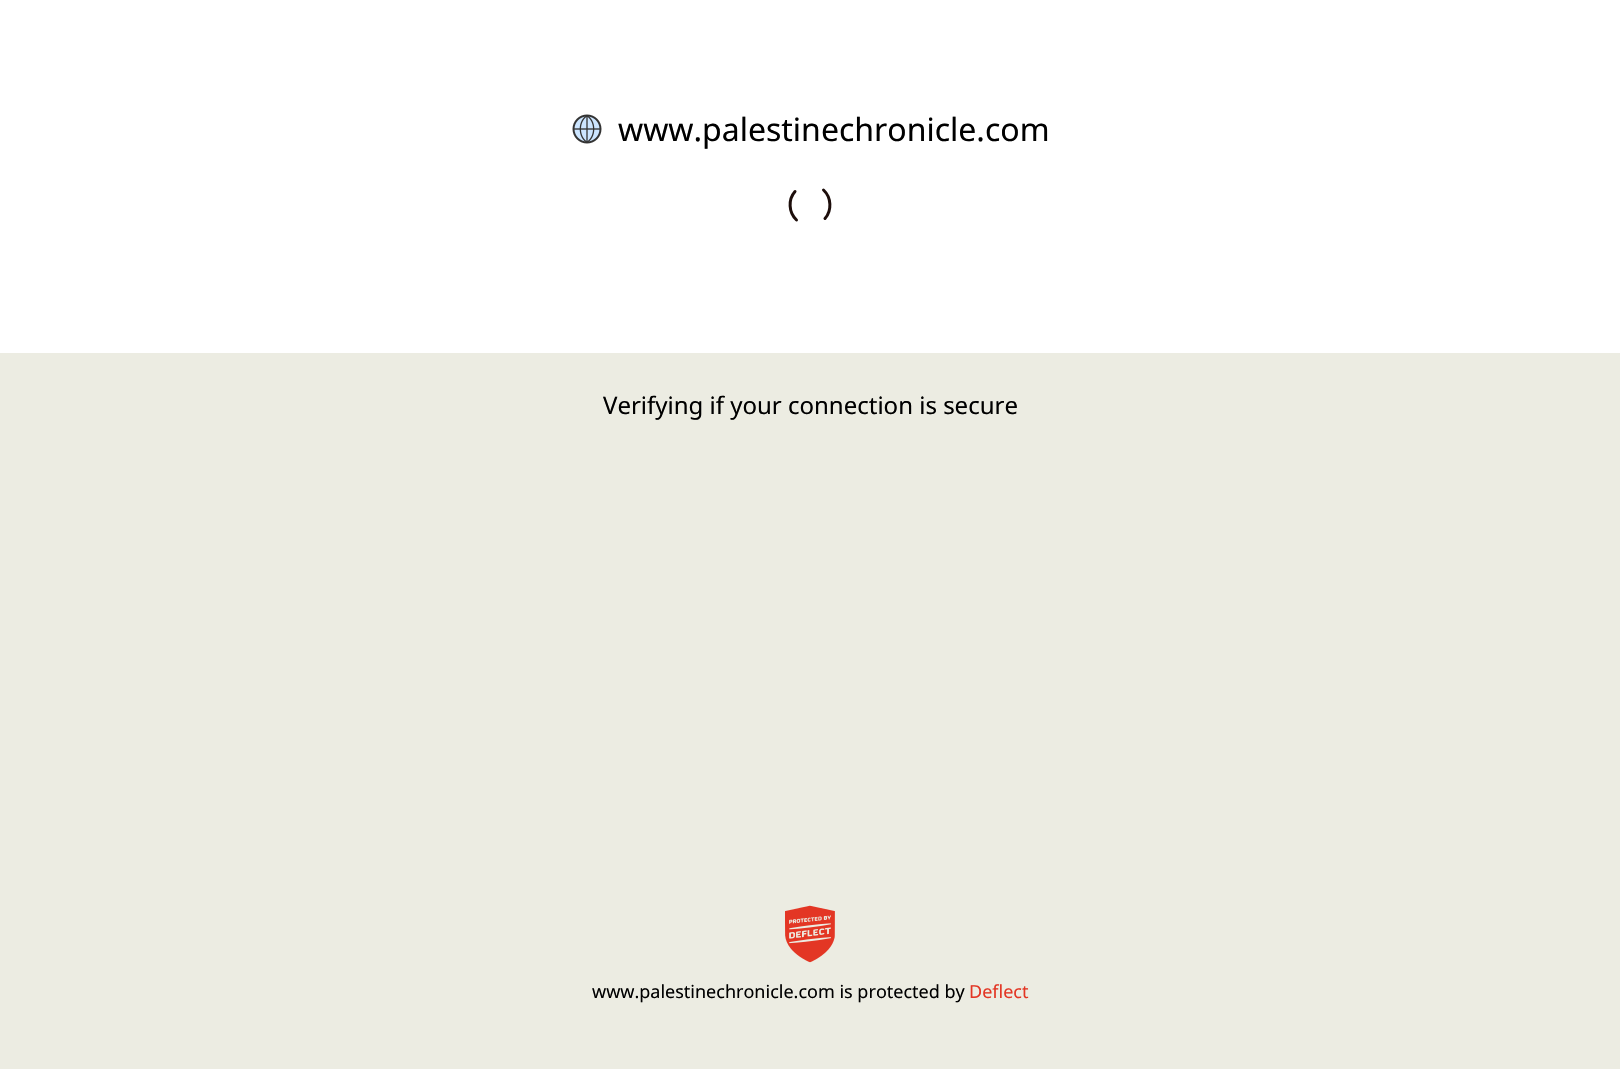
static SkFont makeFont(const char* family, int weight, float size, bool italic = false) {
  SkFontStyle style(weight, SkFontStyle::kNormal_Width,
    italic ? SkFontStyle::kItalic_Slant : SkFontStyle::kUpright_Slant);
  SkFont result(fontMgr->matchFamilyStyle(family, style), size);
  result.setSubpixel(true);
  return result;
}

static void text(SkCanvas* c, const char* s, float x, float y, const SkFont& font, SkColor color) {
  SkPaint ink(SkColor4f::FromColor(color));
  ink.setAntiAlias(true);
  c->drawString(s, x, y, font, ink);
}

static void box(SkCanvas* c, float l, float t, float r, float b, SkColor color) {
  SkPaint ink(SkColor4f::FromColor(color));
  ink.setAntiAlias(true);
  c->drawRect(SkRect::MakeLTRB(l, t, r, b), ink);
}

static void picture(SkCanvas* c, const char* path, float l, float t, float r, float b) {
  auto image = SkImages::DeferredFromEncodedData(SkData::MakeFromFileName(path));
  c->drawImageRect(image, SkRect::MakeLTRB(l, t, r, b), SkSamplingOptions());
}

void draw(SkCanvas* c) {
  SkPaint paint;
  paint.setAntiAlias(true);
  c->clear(0xffffffff);
  picture(c, "img_01.png", 572, 114, 602, 144);
  SkFont face1 = makeFont("Noto Sans", 400, 32);
  text(c, "www.palestinechronicle.com", 618, 141, face1, 0xff000000);
  paint.setStyle(SkPaint::kStroke_Style);
  paint.setStrokeWidth(3);
  paint.setStrokeCap(SkPaint::kRound_Cap);
  paint.setColor(0xff1d0e0b);
  c->drawPath(SkPathBuilder().moveTo(823.5f, 190).cubicTo(831.5f, 197.5f, 832, 210.5f, 825, 218.5f).moveTo(796.5f, 220).cubicTo(788.5f, 212.5f, 788, 199.5f, 795, 191.5f).detach(), paint);
  box(c, 0, 353, 1620, 1069, 0xffecece2);
  SkFont face2 = makeFont("Noto Sans", 400, 24);
  text(c, "Verifying if your connection is secure", 603, 414, face2, 0xff000000);
  picture(c, "img_02.png", 785, 905, 835, 963);
  SkFont face3 = makeFont("Noto Sans", 400, 18);
  text(c, "www.palestinechronicle.com is protected by", 592, 998, face3, 0xff000000);
  text(c, "Deflect", 969, 998, face3, 0xffe33624);
}
